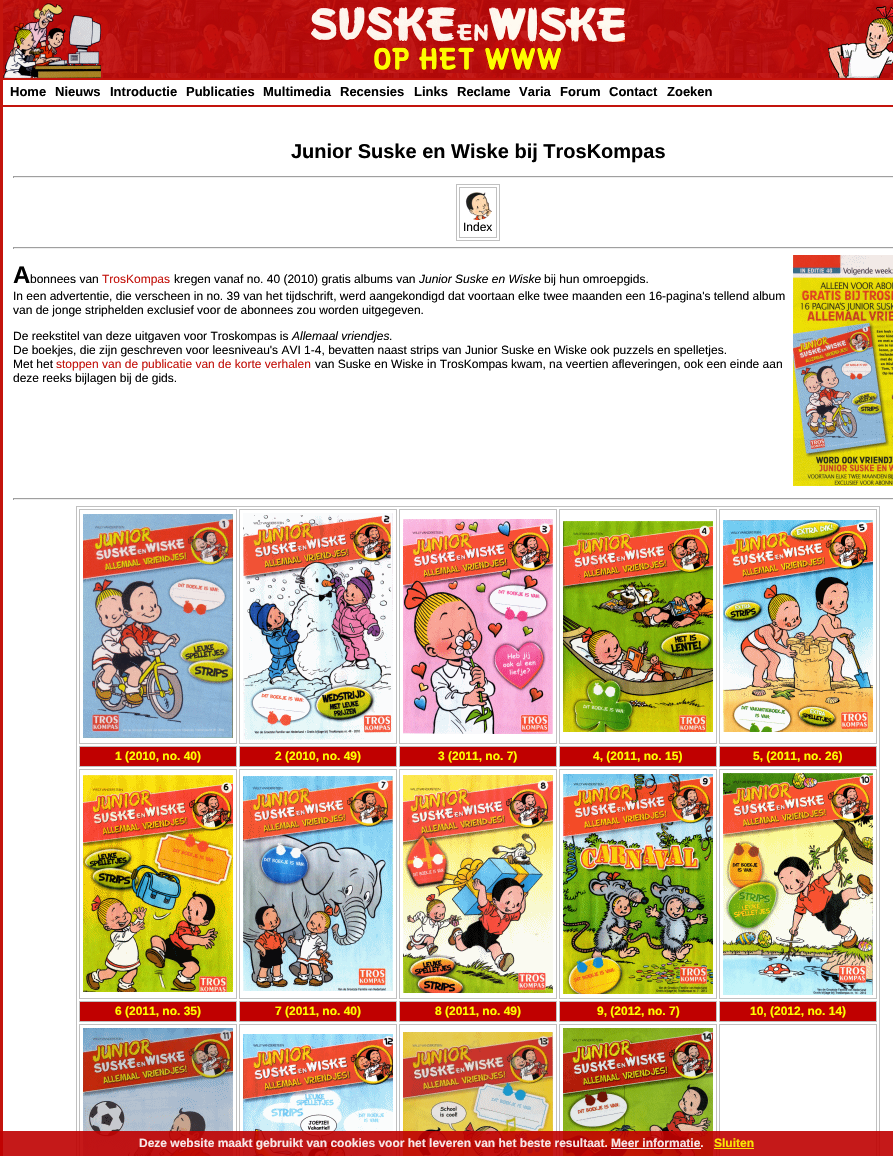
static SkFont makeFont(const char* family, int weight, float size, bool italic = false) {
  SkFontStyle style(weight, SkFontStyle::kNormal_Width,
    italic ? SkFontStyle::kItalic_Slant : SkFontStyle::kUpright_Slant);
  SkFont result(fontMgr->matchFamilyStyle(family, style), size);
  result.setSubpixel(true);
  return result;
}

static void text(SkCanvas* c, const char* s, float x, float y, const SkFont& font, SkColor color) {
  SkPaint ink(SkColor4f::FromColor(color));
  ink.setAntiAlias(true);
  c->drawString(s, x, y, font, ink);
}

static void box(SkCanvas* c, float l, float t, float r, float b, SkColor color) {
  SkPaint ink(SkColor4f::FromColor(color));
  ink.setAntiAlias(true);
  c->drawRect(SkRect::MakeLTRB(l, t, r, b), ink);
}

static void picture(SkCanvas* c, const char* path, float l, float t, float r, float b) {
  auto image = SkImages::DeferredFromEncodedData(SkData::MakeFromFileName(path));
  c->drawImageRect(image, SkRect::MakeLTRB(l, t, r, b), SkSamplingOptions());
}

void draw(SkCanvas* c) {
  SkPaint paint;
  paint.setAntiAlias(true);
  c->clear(0xffffffff);
  paint.setStyle(SkPaint::kStroke_Style);
  paint.setStrokeWidth(3);
  paint.setColor(0xffc3140d);
  c->drawRect(SkRect::MakeLTRB(1.5f, -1.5f, 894.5f, 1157.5f), paint);
  picture(c, "img_01.png", 3, 0, 893, 78);
  picture(c, "img_02.png", 3, 3, 101, 78);
  picture(c, "img_03.png", 311, 7, 625, 70);
  picture(c, "img_04.png", 828, 6, 893, 78);
  box(c, 3, 78, 893, 80, 0xffc3140d);
  box(c, 3, 105, 893, 107, 0xffc3140d);
  SkFont face1 = makeFont("Liberation Sans", 700, 13);
  text(c, "Home", 10, 96, face1, 0xff000000);
  text(c, "Nieuws", 55, 96, face1, 0xff000000);
  text(c, "Introductie", 110, 96, face1, 0xff000000);
  text(c, "Publicaties", 186, 96, face1, 0xff000000);
  text(c, "Multimedia", 263, 96, face1, 0xff000000);
  text(c, "Recensies", 340, 96, face1, 0xff000000);
  text(c, "Links", 414, 96, face1, 0xff000000);
  text(c, "Reclame", 457, 96, face1, 0xff000000);
  text(c, "Varia", 519, 96, face1, 0xff000000);
  text(c, "Forum", 560, 96, face1, 0xff000000);
  text(c, "Contact", 609, 96, face1, 0xff000000);
  text(c, "Zoeken", 667, 96, face1, 0xff000000);
  SkFont face2 = makeFont("Liberation Sans", 700, 20);
  text(c, "Junior Suske en Wiske bij TrosKompas", 291, 158, face2, 0xff000000);
  box(c, 13, 176, 893, 177, 0xff9f9f9f);
  box(c, 13, 177, 893, 178, 0xffeeeeee);
  box(c, 13, 176, 14, 178, 0xff9f9f9f);
  paint.setStrokeWidth(1);
  paint.setColor(0xffc0c0c0);
  c->drawRect(SkRect::MakeLTRB(456.5f, 184.5f, 499.5f, 240.5f), paint);
  c->drawRect(SkRect::MakeLTRB(459.5f, 187.5f, 496.5f, 237.5f), paint);
  picture(c, "img_05.png", 465, 192, 492, 220);
  SkFont face3 = makeFont("Liberation Sans", 400, 12);
  text(c, "Index", 463, 231, face3, 0xff000000);
  box(c, 13, 247, 893, 248, 0xff9f9f9f);
  box(c, 13, 248, 893, 249, 0xffeeeeee);
  box(c, 13, 247, 14, 249, 0xff9f9f9f);
  SkFont face4 = makeFont("Liberation Sans", 700, 24);
  text(c, "A", 13, 283, face4, 0xff000000);
  text(c, "bonnees van", 30, 283, face3, 0xff000000);
  text(c, "TrosKompas", 102, 283, face3, 0xffc3140d);
  text(c, "kregen vanaf no. 40 (2010) gratis albums van", 174, 283, face3, 0xff000000);
  SkFont face5 = makeFont("Liberation Sans", 400, 12, true);
  text(c, "Junior Suske en Wiske", 419, 283, face5, 0xff000000);
  text(c, "bij hun omroepgids.", 544, 283, face3, 0xff000000);
  text(c, "In een advertentie, die verscheen in no. 39 van het tijdschrift, werd aangekondigd dat voortaan elke twee maanden een 16-pagina's tellend album", 13, 300, face3, 0xff000000);
  text(c, "van de jonge striphelden exclusief voor de abonnees zou worden uitgegeven.", 13, 314, face3, 0xff000000);
  picture(c, "img_06.png", 793, 255, 893, 486);
  text(c, "De reekstitel van deze uitgaven voor Troskompas is", 13, 340, face3, 0xff000000);
  text(c, "Allemaal vriendjes", 292, 340, face5, 0xff000000);
  text(c, ".", 389, 340, face3, 0xff000000);
  text(c, "De boekjes, die zijn geschreven voor leesniveau's AVI 1-4, bevatten naast strips van Junior Suske en Wiske ook puzzels en spelletjes.", 13, 354, face3, 0xff000000);
  text(c, "Met het", 13, 368, face3, 0xff000000);
  text(c, "stoppen van de publicatie van de korte verhalen", 56, 368, face3, 0xffc3140d);
  text(c, "van Suske en Wiske in TrosKompas kwam, na veertien afleveringen, ook een einde aan", 315, 368, face3, 0xff000000);
  text(c, "deze reeks bijlagen bij de gids.", 13, 382, face3, 0xff000000);
  box(c, 13, 498, 893, 499, 0xff9f9f9f);
  box(c, 13, 499, 893, 500, 0xffeeeeee);
  box(c, 13, 498, 14, 500, 0xff9f9f9f);
  c->drawRect(SkRect::MakeLTRB(76.5f, 506.5f, 879.5f, 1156.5f), paint);
  c->drawRect(SkRect::MakeLTRB(79.5f, 509.5f, 236.5f, 743.5f), paint);
  picture(c, "img_07.png", 83, 514, 233, 738);
  c->drawRect(SkRect::MakeLTRB(239.5f, 509.5f, 396.5f, 743.5f), paint);
  picture(c, "img_08.png", 243, 513, 393, 740);
  c->drawRect(SkRect::MakeLTRB(399.5f, 509.5f, 556.5f, 743.5f), paint);
  picture(c, "img_09.png", 403, 519, 553, 734);
  c->drawRect(SkRect::MakeLTRB(559.5f, 509.5f, 716.5f, 743.5f), paint);
  picture(c, "img_10.png", 563, 521, 713, 732);
  c->drawRect(SkRect::MakeLTRB(719.5f, 509.5f, 876.5f, 743.5f), paint);
  picture(c, "img_11.png", 723, 520, 873, 732);
  paint.setStyle(SkPaint::kFill_Style);
  paint.setColor(0xffc00000);
  c->drawRect(SkRect::MakeLTRB(79.5f, 746.5f, 236.5f, 766.5f), paint);
  paint.setStyle(SkPaint::kStroke_Style);
  paint.setColor(0xffc0c0c0);
  c->drawRect(SkRect::MakeLTRB(79.5f, 746.5f, 236.5f, 766.5f), paint);
  SkFont face6 = makeFont("Liberation Sans", 700, 12);
  text(c, "1 (2010, no. 40)", 115, 760, face6, 0xffffff00);
  paint.setStyle(SkPaint::kFill_Style);
  paint.setColor(0xffc00000);
  c->drawRect(SkRect::MakeLTRB(239.5f, 746.5f, 396.5f, 766.5f), paint);
  paint.setStyle(SkPaint::kStroke_Style);
  paint.setColor(0xffc0c0c0);
  c->drawRect(SkRect::MakeLTRB(239.5f, 746.5f, 396.5f, 766.5f), paint);
  text(c, "2 (2010, no. 49)", 275, 760, face6, 0xffffff00);
  paint.setStyle(SkPaint::kFill_Style);
  paint.setColor(0xffc00000);
  c->drawRect(SkRect::MakeLTRB(399.5f, 746.5f, 556.5f, 766.5f), paint);
  paint.setStyle(SkPaint::kStroke_Style);
  paint.setColor(0xffc0c0c0);
  c->drawRect(SkRect::MakeLTRB(399.5f, 746.5f, 556.5f, 766.5f), paint);
  text(c, "3 (2011, no. 7)", 438, 760, face6, 0xffffff00);
  paint.setStyle(SkPaint::kFill_Style);
  paint.setColor(0xffc00000);
  c->drawRect(SkRect::MakeLTRB(559.5f, 746.5f, 716.5f, 766.5f), paint);
  paint.setStyle(SkPaint::kStroke_Style);
  paint.setColor(0xffc0c0c0);
  c->drawRect(SkRect::MakeLTRB(559.5f, 746.5f, 716.5f, 766.5f), paint);
  text(c, "4, (2011, no. 15)", 593, 760, face6, 0xffffff00);
  paint.setStyle(SkPaint::kFill_Style);
  paint.setColor(0xffc00000);
  c->drawRect(SkRect::MakeLTRB(719.5f, 746.5f, 876.5f, 766.5f), paint);
  paint.setStyle(SkPaint::kStroke_Style);
  paint.setColor(0xffc0c0c0);
  c->drawRect(SkRect::MakeLTRB(719.5f, 746.5f, 876.5f, 766.5f), paint);
  text(c, "5, (2011, no. 26)", 753, 760, face6, 0xffffff00);
  c->drawRect(SkRect::MakeLTRB(79.5f, 769.5f, 236.5f, 998.5f), paint);
  picture(c, "img_12.png", 83, 775, 233, 992);
  c->drawRect(SkRect::MakeLTRB(239.5f, 769.5f, 396.5f, 998.5f), paint);
  picture(c, "img_13.png", 243, 776, 393, 991);
  c->drawRect(SkRect::MakeLTRB(399.5f, 769.5f, 556.5f, 998.5f), paint);
  picture(c, "img_14.png", 403, 775, 553, 993);
  c->drawRect(SkRect::MakeLTRB(559.5f, 769.5f, 716.5f, 998.5f), paint);
  picture(c, "img_15.png", 563, 774, 713, 994);
  c->drawRect(SkRect::MakeLTRB(719.5f, 769.5f, 876.5f, 998.5f), paint);
  picture(c, "img_16.png", 723, 773, 873, 995);
  paint.setStyle(SkPaint::kFill_Style);
  paint.setColor(0xffc00000);
  c->drawRect(SkRect::MakeLTRB(79.5f, 1001.5f, 236.5f, 1021.5f), paint);
  paint.setStyle(SkPaint::kStroke_Style);
  paint.setColor(0xffc0c0c0);
  c->drawRect(SkRect::MakeLTRB(79.5f, 1001.5f, 236.5f, 1021.5f), paint);
  text(c, "6 (2011, no. 35)", 115, 1015, face6, 0xffffff00);
  paint.setStyle(SkPaint::kFill_Style);
  paint.setColor(0xffc00000);
  c->drawRect(SkRect::MakeLTRB(239.5f, 1001.5f, 396.5f, 1021.5f), paint);
  paint.setStyle(SkPaint::kStroke_Style);
  paint.setColor(0xffc0c0c0);
  c->drawRect(SkRect::MakeLTRB(239.5f, 1001.5f, 396.5f, 1021.5f), paint);
  text(c, "7 (2011, no. 40)", 275, 1015, face6, 0xffffff00);
  paint.setStyle(SkPaint::kFill_Style);
  paint.setColor(0xffc00000);
  c->drawRect(SkRect::MakeLTRB(399.5f, 1001.5f, 556.5f, 1021.5f), paint);
  paint.setStyle(SkPaint::kStroke_Style);
  paint.setColor(0xffc0c0c0);
  c->drawRect(SkRect::MakeLTRB(399.5f, 1001.5f, 556.5f, 1021.5f), paint);
  text(c, "8 (2011, no. 49)", 435, 1015, face6, 0xffffff00);
  paint.setStyle(SkPaint::kFill_Style);
  paint.setColor(0xffc00000);
  c->drawRect(SkRect::MakeLTRB(559.5f, 1001.5f, 716.5f, 1021.5f), paint);
  paint.setStyle(SkPaint::kStroke_Style);
  paint.setColor(0xffc0c0c0);
  c->drawRect(SkRect::MakeLTRB(559.5f, 1001.5f, 716.5f, 1021.5f), paint);
  text(c, "9, (2012, no. 7)", 597, 1015, face6, 0xffffff00);
  paint.setStyle(SkPaint::kFill_Style);
  paint.setColor(0xffc00000);
  c->drawRect(SkRect::MakeLTRB(719.5f, 1001.5f, 876.5f, 1021.5f), paint);
  paint.setStyle(SkPaint::kStroke_Style);
  paint.setColor(0xffc0c0c0);
  c->drawRect(SkRect::MakeLTRB(719.5f, 1001.5f, 876.5f, 1021.5f), paint);
  text(c, "10, (2012, no. 14)", 750, 1015, face6, 0xffffff00);
  c->drawRect(SkRect::MakeLTRB(79.5f, 1024.5f, 236.5f, 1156.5f), paint);
  picture(c, "img_17.png", 83, 1028, 233, 1156);
  c->drawRect(SkRect::MakeLTRB(239.5f, 1024.5f, 396.5f, 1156.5f), paint);
  picture(c, "img_18.png", 243, 1034, 393, 1156);
  c->drawRect(SkRect::MakeLTRB(399.5f, 1024.5f, 556.5f, 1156.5f), paint);
  picture(c, "img_19.png", 403, 1032, 553, 1156);
  c->drawRect(SkRect::MakeLTRB(559.5f, 1024.5f, 716.5f, 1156.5f), paint);
  picture(c, "img_20.png", 563, 1028, 713, 1156);
  c->drawRect(SkRect::MakeLTRB(719.5f, 1024.5f, 876.5f, 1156.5f), paint);
  box(c, 0, 1131, 893, 1156, 0xe6bf0000);
  text(c, "Deze website maakt gebruikt van cookies voor het leveren van het beste resultaat.", 139, 1147, face6, 0xfff8e7e7);
  text(c, "Meer informatie.", 611, 1147, face6, 0xfff8e7e7);
  box(c, 611, 1148, 701, 1149, 0xe6ffffff);
  text(c, "Sluiten", 714, 1147, face6, 0xfff9e803);
  box(c, 714, 1148, 754, 1149, 0xe6ffff00);
}
